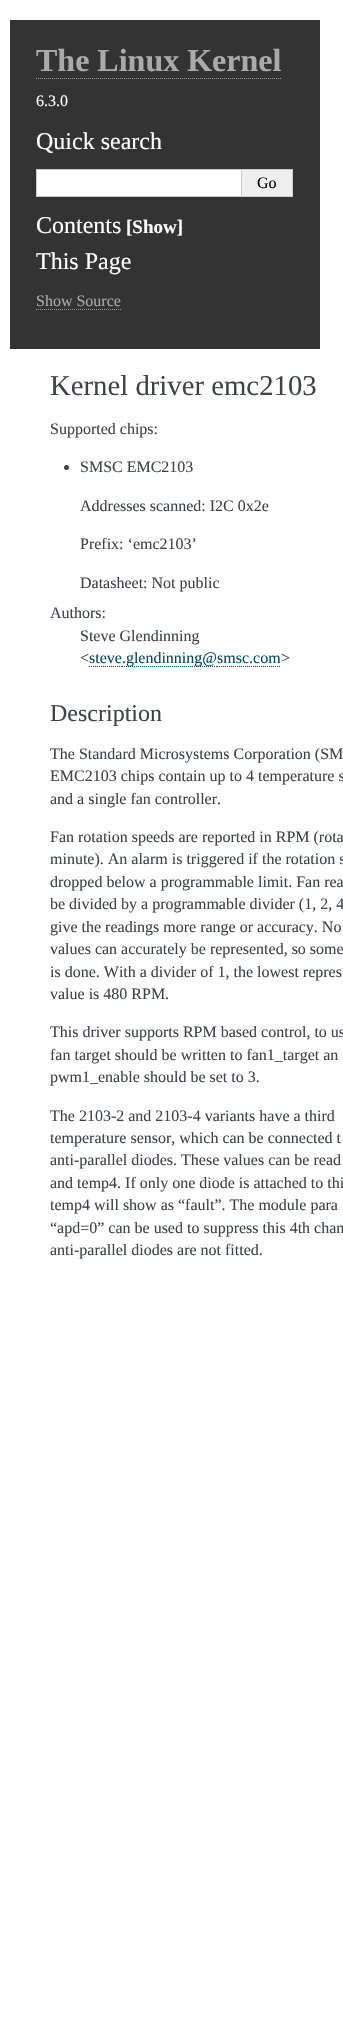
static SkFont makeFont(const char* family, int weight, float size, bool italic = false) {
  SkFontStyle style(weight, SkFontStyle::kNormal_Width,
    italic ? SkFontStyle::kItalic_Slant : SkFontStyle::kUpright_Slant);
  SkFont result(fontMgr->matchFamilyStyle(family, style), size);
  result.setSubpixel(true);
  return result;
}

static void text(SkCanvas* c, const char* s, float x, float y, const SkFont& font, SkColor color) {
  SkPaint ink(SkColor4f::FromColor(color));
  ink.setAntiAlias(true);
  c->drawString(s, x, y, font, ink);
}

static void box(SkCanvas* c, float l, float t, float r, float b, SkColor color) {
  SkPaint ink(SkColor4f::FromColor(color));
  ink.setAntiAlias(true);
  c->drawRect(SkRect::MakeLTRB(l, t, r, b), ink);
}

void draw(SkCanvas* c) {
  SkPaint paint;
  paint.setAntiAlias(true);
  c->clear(0xffffffff);
  box(c, 10, 20, 320, 349, 0xff333333);
  SkFont face1 = makeFont("Liberation Serif", 700, 32);
  text(c, "The Linux Kernel", 36, 71, face1, 0xffaaaaaa);
  paint.setStyle(SkPaint::kStroke_Style);
  paint.setStrokeWidth(1);
  paint.setColor(0xff999999);
  paint.setPathEffect(SkDashPathEffect::Make({{1, 1}}, 0));
  c->drawPath(SkPathBuilder().moveTo(36, 78.5f).lineTo(282, 78.5f).detach(), paint);
  paint.setPathEffect(nullptr);
  SkFont face2 = makeFont("Liberation Serif", 400, 16);
  text(c, "6.3.0", 36, 106, face2, 0xffffffff);
  SkFont face3 = makeFont("Liberation Serif", 400, 24);
  text(c, "Quick search", 36, 149, face3, 0xffffffff);
  paint.setStyle(SkPaint::kFill_Style);
  paint.setColor(0xffffffff);
  c->drawRect(SkRect::MakeLTRB(36.5f, 169.5f, 241.5f, 196.5f), paint);
  paint.setStyle(SkPaint::kStroke_Style);
  paint.setColor(0xffcccccc);
  c->drawRect(SkRect::MakeLTRB(36.5f, 169.5f, 241.5f, 196.5f), paint);
  box(c, 242, 170, 292, 196, 0xffefefef);
  box(c, 242, 169, 293, 170, 0xffcccccc);
  box(c, 292, 169, 293, 197, 0xffcccccc);
  box(c, 242, 196, 293, 197, 0xffcccccc);
  text(c, "Go", 257, 188, face2, 0xff000000);
  text(c, "Contents", 36, 233, face3, 0xffffffff);
  SkFont face4 = makeFont("Liberation Serif", 700, 19);
  text(c, "[Show]", 126, 233, face4, 0xffffffff);
  text(c, "This Page", 36, 269, face3, 0xffffffff);
  text(c, "Show Source", 36, 306, face2, 0xffaaaaaa);
  paint.setColor(0xff999999);
  paint.setPathEffect(SkDashPathEffect::Make({{1, 1}}, 0));
  c->drawPath(SkPathBuilder().moveTo(36, 309.5f).lineTo(121, 309.5f).detach(), paint);
  paint.setPathEffect(nullptr);
  SkFont face5 = makeFont("Liberation Serif", 400, 28.75f);
  text(c, "Kernel driver emc2103", 50, 395, face5, 0xff3e4349);
  text(c, "Supported chips:", 50, 434, face2, 0xff3e4349);
  paint.setStyle(SkPaint::kFill_Style);
  paint.setColor(0xff3e4349);
  c->drawCircle(66.5f, 467.5f, 2.5f, paint);
  text(c, "SMSC EMC2103", 80, 472, face2, 0xff3e4349);
  text(c, "Addresses scanned: I2C 0x2e", 80, 511, face2, 0xff3e4349);
  text(c, "Prefix: ‘emc2103’", 80, 549, face2, 0xff3e4349);
  text(c, "Datasheet: Not public", 80, 588, face2, 0xff3e4349);
  text(c, "Authors:", 50, 618, face2, 0xff3e4349);
  text(c, "Steve Glendinning", 80, 641, face2, 0xff3e4349);
  text(c, "<", 80, 663, face2, 0xff3e4349);
  paint.setStyle(SkPaint::kStroke_Style);
  paint.setColor(0xff004b6b);
  paint.setPathEffect(SkDashPathEffect::Make({{1, 1}}, 0));
  c->drawPath(SkPathBuilder().moveTo(89, 666.5f).lineTo(122, 666.5f).detach(), paint);
  paint.setPathEffect(nullptr);
  c->drawPath(SkPathBuilder().moveTo(122, 666.5f).lineTo(123, 666.5f).moveTo(124, 666.5f).lineTo(125, 666.5f).detach(), paint);
  paint.setPathEffect(SkDashPathEffect::Make({{1, 1}}, 0));
  c->drawPath(SkPathBuilder().moveTo(126, 666.5f).lineTo(202, 666.5f).detach(), paint);
  paint.setPathEffect(nullptr);
  paint.setPathEffect(SkDashPathEffect::Make({{1, 1}}, 0));
  c->drawPath(SkPathBuilder().moveTo(202, 666.5f).lineTo(217, 666.5f).moveTo(217, 666.5f).lineTo(249, 666.5f).detach(), paint);
  paint.setPathEffect(nullptr);
  c->drawPath(SkPathBuilder().moveTo(249, 666.5f).lineTo(250, 666.5f).moveTo(251, 666.5f).lineTo(252, 666.5f).detach(), paint);
  paint.setPathEffect(SkDashPathEffect::Make({{1, 1}}, 0));
  c->drawPath(SkPathBuilder().moveTo(253, 666.5f).lineTo(281, 666.5f).detach(), paint);
  paint.setPathEffect(nullptr);
  text(c, "steve.glendinning@smsc.com", 89, 663, face2, 0xff004b6b);
  text(c, ">", 281, 663, face2, 0xff3e4349);
  text(c, "Description", 50, 721, face3, 0xff3e4349);
  text(c, "The Standard Microsystems Corporation (SM", 50, 759, face2, 0xff3e4349);
  text(c, "EMC2103 chips contain up to 4 temperature s", 50, 781, face2, 0xff3e4349);
  text(c, "and a single fan controller.", 50, 804, face2, 0xff3e4349);
  text(c, "Fan rotation speeds are reported in RPM (rota", 50, 842, face2, 0xff3e4349);
  text(c, "minute). An alarm is triggered if the rotation s", 50, 864, face2, 0xff3e4349);
  text(c, "dropped below a programmable limit. Fan rea", 50, 887, face2, 0xff3e4349);
  text(c, "be divided by a programmable divider (1, 2, 4", 50, 909, face2, 0xff3e4349);
  text(c, "give the readings more range or accuracy. No", 50, 932, face2, 0xff3e4349);
  text(c, "values can accurately be represented, so some", 50, 954, face2, 0xff3e4349);
  text(c, "is done. With a divider of 1, the lowest repres", 50, 977, face2, 0xff3e4349);
  text(c, "value is 480 RPM.", 50, 999, face2, 0xff3e4349);
  text(c, "This driver supports RPM based control, to us", 50, 1037, face2, 0xff3e4349);
  text(c, "fan target should be written to fan1_target an", 50, 1060, face2, 0xff3e4349);
  text(c, "pwm1_enable should be set to 3.", 50, 1082, face2, 0xff3e4349);
  text(c, "The 2103-2 and 2103-4 variants have a third", 50, 1121, face2, 0xff3e4349);
  text(c, "temperature sensor, which can be connected t", 50, 1143, face2, 0xff3e4349);
  text(c, "anti-parallel diodes. These values can be read", 50, 1165, face2, 0xff3e4349);
  text(c, "and temp4. If only one diode is attached to thi", 50, 1188, face2, 0xff3e4349);
  text(c, "temp4 will show as “fault”. The module para", 50, 1210, face2, 0xff3e4349);
  text(c, "“apd=0” can be used to suppress this 4th chan", 50, 1233, face2, 0xff3e4349);
  text(c, "anti-parallel diodes are not fitted.", 50, 1255, face2, 0xff3e4349);
}
